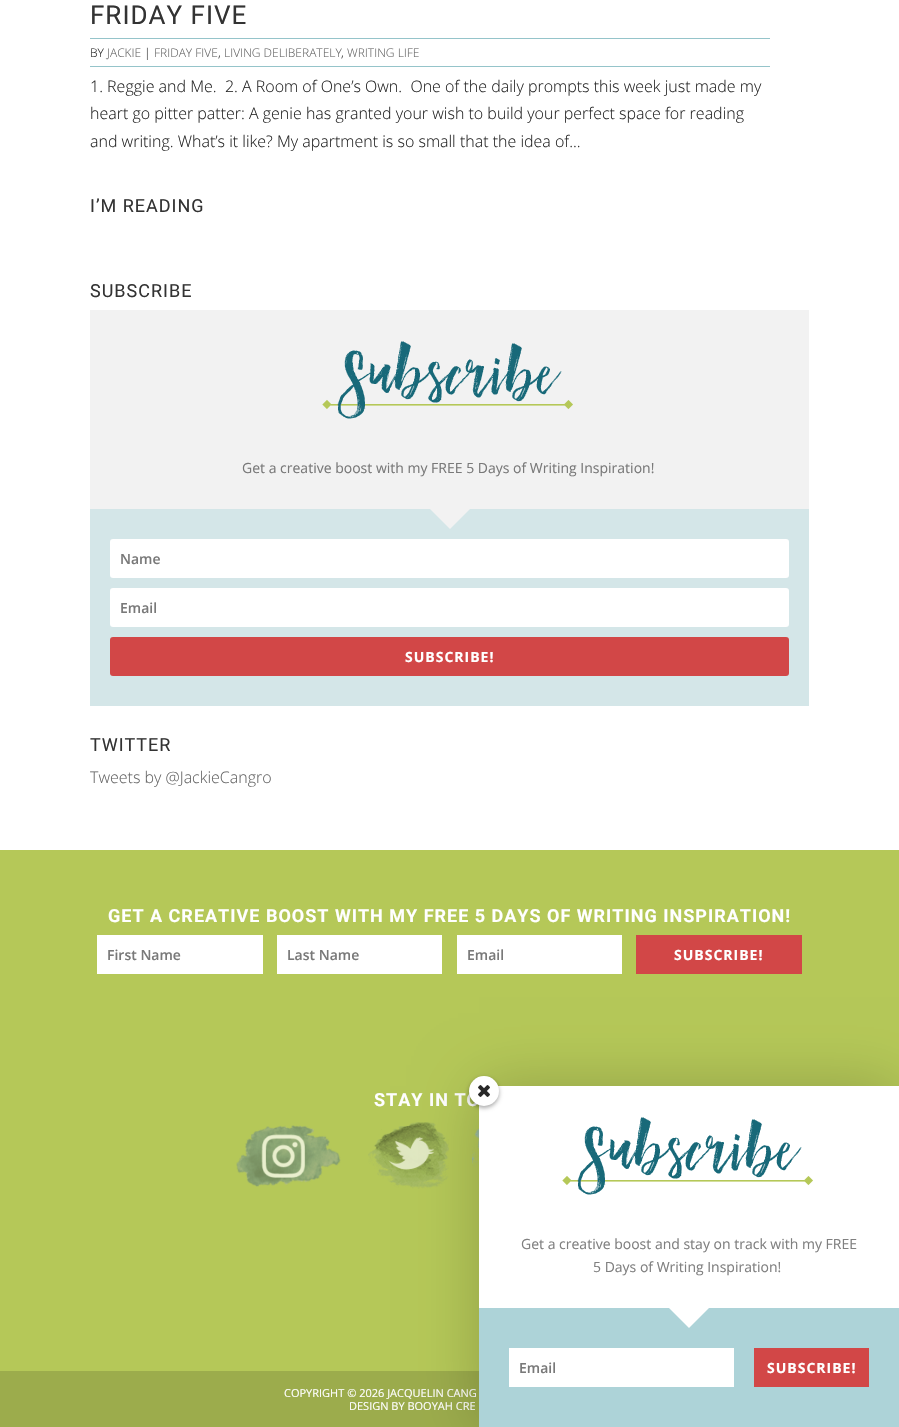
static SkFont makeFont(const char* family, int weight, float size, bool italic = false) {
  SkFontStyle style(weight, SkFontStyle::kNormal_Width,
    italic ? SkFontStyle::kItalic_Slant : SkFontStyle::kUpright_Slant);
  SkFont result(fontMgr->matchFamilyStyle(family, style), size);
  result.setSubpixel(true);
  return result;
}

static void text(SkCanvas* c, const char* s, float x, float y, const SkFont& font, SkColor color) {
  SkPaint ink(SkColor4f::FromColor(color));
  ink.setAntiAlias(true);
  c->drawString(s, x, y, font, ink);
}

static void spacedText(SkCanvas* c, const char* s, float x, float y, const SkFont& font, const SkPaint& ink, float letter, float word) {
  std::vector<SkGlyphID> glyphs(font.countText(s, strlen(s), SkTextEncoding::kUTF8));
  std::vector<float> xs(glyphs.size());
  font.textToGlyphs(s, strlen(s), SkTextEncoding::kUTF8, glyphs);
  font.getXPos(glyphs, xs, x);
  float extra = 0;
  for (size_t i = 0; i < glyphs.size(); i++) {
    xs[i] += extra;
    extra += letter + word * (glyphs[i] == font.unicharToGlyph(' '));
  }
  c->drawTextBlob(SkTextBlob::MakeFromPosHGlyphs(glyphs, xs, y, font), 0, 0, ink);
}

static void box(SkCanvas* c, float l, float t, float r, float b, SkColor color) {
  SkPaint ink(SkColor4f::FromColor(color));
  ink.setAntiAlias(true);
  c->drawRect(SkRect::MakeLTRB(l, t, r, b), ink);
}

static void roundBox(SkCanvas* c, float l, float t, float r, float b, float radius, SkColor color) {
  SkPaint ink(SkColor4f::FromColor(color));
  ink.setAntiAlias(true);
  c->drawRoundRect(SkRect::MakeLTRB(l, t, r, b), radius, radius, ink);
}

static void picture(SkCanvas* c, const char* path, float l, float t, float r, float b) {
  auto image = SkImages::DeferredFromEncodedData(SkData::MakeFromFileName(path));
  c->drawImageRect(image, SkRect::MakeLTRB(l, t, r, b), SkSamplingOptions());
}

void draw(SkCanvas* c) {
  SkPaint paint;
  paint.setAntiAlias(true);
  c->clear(0xffffffff);
  SkFont face1 = makeFont("Roboto", 400, 26);
  paint.setColor(0xff333333);
  spacedText(c, "FRIDAY FIVE", 90, 24, face1, paint, 1, 0);
  box(c, 90, 38, 770, 39, 0xff95c4ca);
  box(c, 90, 66, 770, 67, 0xff95c4ca);
  SkFont face2 = makeFont("Open Sans", 300, 12);
  text(c, "BY", 90, 57, face2, 0xff282828);
  text(c, "JACKIE", 107, 57, face2, 0xff666666);
  text(c, "|", 144, 57, face2, 0xff282828);
  text(c, "FRIDAY FIVE", 154, 57, face2, 0xff666666);
  text(c, ",", 218, 57, face2, 0xff282828);
  text(c, "LIVING DELIBERATELY", 224, 57, face2, 0xff666666);
  text(c, ",", 341, 57, face2, 0xff282828);
  text(c, "WRITING LIFE", 347, 57, face2, 0xff666666);
  SkFont face3 = makeFont("Open Sans", 300, 16);
  text(c, "1. Reggie and Me.  2. A Room of One’s Own.  One of the daily prompts this week just made my", 90, 92, face3, 0xff282828);
  text(c, "heart go pitter patter: A genie has granted your wish to build your perfect space for reading", 90, 119, face3, 0xff282828);
  text(c, "and writing. What’s it like? My apartment is so small that the idea of...", 90, 147, face3, 0xff282828);
  SkFont face4 = makeFont("Roboto", 400, 18);
  spacedText(c, "I’M READING", 90, 212, face4, paint, 1, 0);
  spacedText(c, "SUBSCRIBE", 90, 297, face4, paint, 1, 0);
  box(c, 90, 310, 809, 509, 0xfff2f2f2);
  picture(c, "img_01.png", 322, 341, 573, 419);
  SkFont face5 = makeFont("Open Sans", 400, 14);
  text(c, "Get a creative boost with my FREE 5 Days of Writing Inspiration!", 242, 473, face5, 0xff797979);
  box(c, 90, 509, 809, 706, 0xffd4e6e8);
  paint.setColor(0xfff2f2f2);
  c->drawPath(SkPathBuilder().moveTo(430, 509).lineTo(470, 509).lineTo(450, 529).close().detach(), paint);
  roundBox(c, 110, 539, 789, 578, 3, 0xffffffff);
  SkFont face6 = makeFont("Open Sans", 600, 14);
  text(c, "Name", 120, 564, face6, 0xff797979);
  roundBox(c, 110, 588, 789, 627, 3, 0xffffffff);
  text(c, "Email", 120, 613, face6, 0xff797979);
  roundBox(c, 110, 637, 789, 676, 3, 0xffd24747);
  SkFont face7 = makeFont("Open Sans", 700, 14);
  paint.setColor(0xffffffff);
  spacedText(c, "SUBSCRIBE!", 405, 662, face7, paint, 1, 0);
  paint.setColor(0xff333333);
  spacedText(c, "TWITTER", 90, 751, face4, paint, 1, 0);
  text(c, "Tweets by @JackieCangro", 90, 783, face3, 0xff666666);
  box(c, 0, 850, 899, 1371, 0xffb5c858);
  SkFont face8 = makeFont("Roboto", 700, 18);
  paint.setColor(0xffffffff);
  spacedText(c, "GET A CREATIVE BOOST WITH MY FREE 5 DAYS OF WRITING INSPIRATION!", 108, 922, face8, paint, 1, 0);
  box(c, 97, 935, 263, 974, 0xffffffff);
  text(c, "First Name", 107, 960, face6, 0xff797979);
  box(c, 277, 935, 442, 974, 0xffffffff);
  text(c, "Last Name", 287, 960, face6, 0xff797979);
  box(c, 457, 935, 622, 974, 0xffffffff);
  text(c, "Email", 467, 960, face6, 0xff797979);
  box(c, 636, 935, 802, 974, 0xffd24747);
  spacedText(c, "SUBSCRIBE!", 674, 960, face7, paint, 1, 0);
  spacedText(c, "STAY IN TO", 374, 1106, face8, paint, 1, 0);
  picture(c, "img_02.png", 236, 1125, 341, 1187);
  picture(c, "img_03.png", 368, 1122, 449, 1189);
  picture(c, "img_04.png", 472, 1128, 479, 1167);
  box(c, 0, 1371, 479, 1427, 0xff9cac4c);
  SkFont face9 = makeFont("Open Sans", 400, 11);
  text(c, "COPYRIGHT © 2026 JACQUELIN CANG", 284, 1397, face9, 0xffffffff);
  text(c, "DESIGN BY BOOYAH CRE", 349, 1410, face9, 0xffffffff);
  paint.setColor(0x33000000);
  paint.setMaskFilter(SkMaskFilter::MakeBlur(kNormal_SkBlurStyle, 30));
  c->drawRect(SkRect::MakeLTRB(479, 1086, 899, 1427), paint);
  paint.setMaskFilter(nullptr);
  box(c, 479, 1086, 899, 1308, 0xffffffff);
  paint.setColor(0x57000000);
  paint.setMaskFilter(SkMaskFilter::MakeBlur(kNormal_SkBlurStyle, 2));
  c->drawRoundRect(SkRect::MakeLTRB(469, 1078, 499, 1108), 15, 15, paint);
  paint.setMaskFilter(nullptr);
  paint.setColor(0xffffffff);
  c->drawCircle(484, 1091, 15, paint);
  picture(c, "img_05.png", 478, 1085, 490, 1097);
  picture(c, "img_06.png", 562, 1117, 813, 1195);
  text(c, "Get a creative boost and stay on track with my FREE", 521, 1249, face5, 0xff808080);
  text(c, "5 Days of Writing Inspiration!", 593, 1272, face5, 0xff808080);
  box(c, 479, 1308, 899, 1427, 0xffadd3d8);
  c->drawPath(SkPathBuilder().moveTo(669, 1308).lineTo(709, 1308).lineTo(689, 1328).close().detach(), paint);
  box(c, 509, 1348, 734, 1387, 0xffffffff);
  text(c, "Email", 519, 1373, face6, 0xff797979);
  box(c, 754, 1348, 869, 1387, 0xffd24747);
  spacedText(c, "SUBSCRIBE!", 767, 1373, face7, paint, 1, 0);
}
